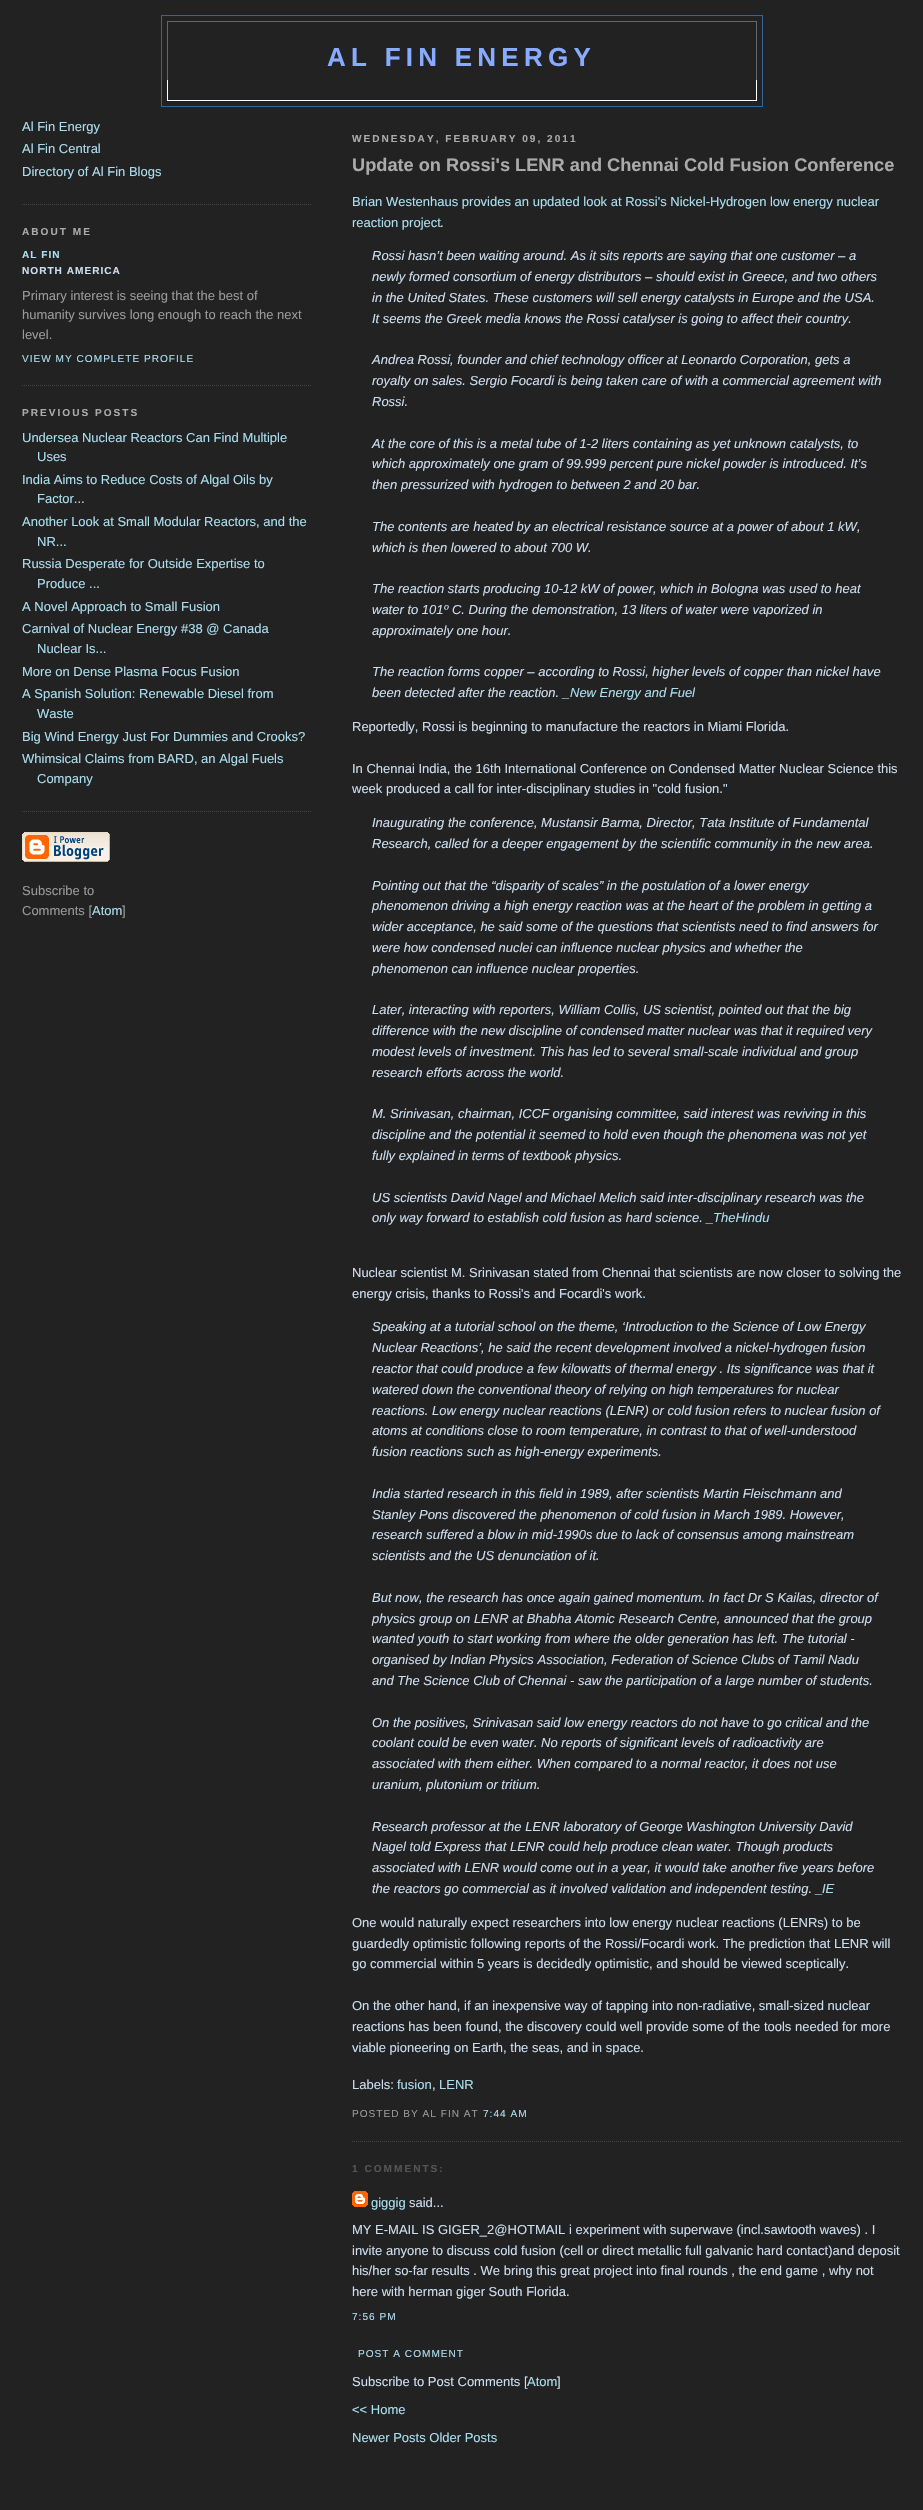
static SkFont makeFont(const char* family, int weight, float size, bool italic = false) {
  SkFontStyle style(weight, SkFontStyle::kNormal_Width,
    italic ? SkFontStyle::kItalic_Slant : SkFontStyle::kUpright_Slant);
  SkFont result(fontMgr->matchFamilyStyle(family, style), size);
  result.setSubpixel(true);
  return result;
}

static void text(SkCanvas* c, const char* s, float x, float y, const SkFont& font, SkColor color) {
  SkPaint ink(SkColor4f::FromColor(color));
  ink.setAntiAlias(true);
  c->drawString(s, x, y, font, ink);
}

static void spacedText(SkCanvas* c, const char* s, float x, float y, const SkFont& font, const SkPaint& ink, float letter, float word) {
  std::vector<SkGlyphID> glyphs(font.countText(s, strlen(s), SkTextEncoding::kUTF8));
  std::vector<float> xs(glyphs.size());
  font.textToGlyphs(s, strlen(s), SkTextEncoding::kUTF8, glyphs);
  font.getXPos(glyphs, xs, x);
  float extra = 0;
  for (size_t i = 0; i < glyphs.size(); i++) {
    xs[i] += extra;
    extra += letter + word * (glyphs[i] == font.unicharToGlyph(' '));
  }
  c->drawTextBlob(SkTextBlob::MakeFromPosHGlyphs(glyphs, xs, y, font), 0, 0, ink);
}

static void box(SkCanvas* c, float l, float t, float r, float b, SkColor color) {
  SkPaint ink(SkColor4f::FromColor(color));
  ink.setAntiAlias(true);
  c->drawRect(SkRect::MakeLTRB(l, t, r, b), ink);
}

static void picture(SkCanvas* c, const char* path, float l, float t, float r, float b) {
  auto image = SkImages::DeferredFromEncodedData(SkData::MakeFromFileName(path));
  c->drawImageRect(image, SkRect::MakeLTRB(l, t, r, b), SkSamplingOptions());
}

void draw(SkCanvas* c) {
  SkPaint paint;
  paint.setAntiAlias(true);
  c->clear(0xff222222);
  paint.setStyle(SkPaint::kStroke_Style);
  paint.setStrokeWidth(1);
  paint.setColor(0xff336699);
  c->drawRect(SkRect::MakeLTRB(161.5f, 15.5f, 762.5f, 106.5f), paint);
  box(c, 167, 21, 757, 22, 0xff666666);
  box(c, 756, 21, 757, 80, 0xff666666);
  box(c, 167, 21, 168, 80, 0xff666666);
  SkFont face1 = makeFont("Liberation Sans", 700, 26);
  paint.setStyle(SkPaint::kFill_Style);
  paint.setColor(0xff88aaff);
  spacedText(c, "AL FIN ENERGY", 327, 66, face1, paint, 5.25f, 0);
  box(c, 756, 80, 757, 101, 0xffffffff);
  box(c, 167, 100, 757, 101, 0xffffffff);
  box(c, 167, 80, 168, 101, 0xffffffff);
  paint.setStyle(SkPaint::kStroke_Style);
  paint.setColor(0xff444444);
  paint.setPathEffect(SkDashPathEffect::Make({{1, 1}}, 0));
  c->drawPath(SkPathBuilder().moveTo(22, 204.5f).lineTo(312, 204.5f).detach(), paint);
  paint.setPathEffect(nullptr);
  SkFont face2 = makeFont("Liberation Sans", 400, 13);
  text(c, "Al Fin Energy", 22, 131, face2, 0xffaaddee);
  text(c, "Al Fin Central", 22, 153, face2, 0xffaaddee);
  text(c, "Directory of Al Fin Blogs", 22, 176, face2, 0xffaaddee);
  paint.setPathEffect(SkDashPathEffect::Make({{1, 1}}, 0));
  c->drawPath(SkPathBuilder().moveTo(22, 385.5f).lineTo(312, 385.5f).detach(), paint);
  paint.setPathEffect(nullptr);
  SkFont face3 = makeFont("Liberation Sans", 700, 10.1f);
  paint.setStyle(SkPaint::kFill_Style);
  paint.setColor(0xffaaaaaa);
  spacedText(c, "ABOUT ME", 22, 235, face3, paint, 2, 0);
  paint.setColor(0xffaaddee);
  spacedText(c, "AL FIN", 22, 258, face3, paint, 1, 0);
  paint.setColor(0xffccddee);
  spacedText(c, "NORTH AMERICA", 22, 274, face3, paint, 1, 0);
  text(c, "Primary interest is seeing that the best of", 22, 300, face2, 0xff999999);
  text(c, "humanity survives long enough to reach the next", 22, 319, face2, 0xff999999);
  text(c, "level.", 22, 339, face2, 0xff999999);
  SkFont face4 = makeFont("Liberation Sans", 400, 10.1f);
  paint.setColor(0xffaaddee);
  spacedText(c, "VIEW MY COMPLETE PROFILE", 22, 362, face4, paint, 1, 0);
  paint.setColor(0xffaaaaaa);
  spacedText(c, "PREVIOUS POSTS", 22, 416, face3, paint, 2, 0);
  paint.setStyle(SkPaint::kStroke_Style);
  paint.setColor(0xff444444);
  paint.setPathEffect(SkDashPathEffect::Make({{1, 1}}, 0));
  c->drawPath(SkPathBuilder().moveTo(22, 811.5f).lineTo(312, 811.5f).detach(), paint);
  paint.setPathEffect(nullptr);
  text(c, "Undersea Nuclear Reactors Can Find Multiple", 22, 442, face2, 0xffaaddee);
  text(c, "Uses", 37, 461, face2, 0xffaaddee);
  text(c, "India Aims to Reduce Costs of Algal Oils by", 22, 484, face2, 0xffaaddee);
  text(c, "Factor...", 37, 503, face2, 0xffaaddee);
  text(c, "Another Look at Small Modular Reactors, and the", 22, 526, face2, 0xffaaddee);
  text(c, "NR...", 37, 546, face2, 0xffaaddee);
  text(c, "Russia Desperate for Outside Expertise to", 22, 568, face2, 0xffaaddee);
  text(c, "Produce ...", 37, 588, face2, 0xffaaddee);
  text(c, "A Novel Approach to Small Fusion", 22, 611, face2, 0xffaaddee);
  text(c, "Carnival of Nuclear Energy #38 @ Canada", 22, 633, face2, 0xffaaddee);
  text(c, "Nuclear Is...", 37, 653, face2, 0xffaaddee);
  text(c, "More on Dense Plasma Focus Fusion", 22, 676, face2, 0xffaaddee);
  text(c, "A Spanish Solution: Renewable Diesel from", 22, 698, face2, 0xffaaddee);
  text(c, "Waste", 37, 718, face2, 0xffaaddee);
  text(c, "Big Wind Energy Just For Dummies and Crooks?", 22, 741, face2, 0xffaaddee);
  text(c, "Whimsical Claims from BARD, an Algal Fuels", 22, 763, face2, 0xffaaddee);
  text(c, "Company", 37, 783, face2, 0xffaaddee);
  picture(c, "img_01.png", 22, 832, 110, 862);
  text(c, "Subscribe to", 22, 895, face2, 0xff999999);
  text(c, "Comments [", 22, 915, face2, 0xff999999);
  text(c, "Atom", 92, 915, face2, 0xffaaddee);
  text(c, "]", 122, 915, face2, 0xff999999);
  paint.setStyle(SkPaint::kFill_Style);
  paint.setColor(0xffaaaaaa);
  spacedText(c, "WEDNESDAY, FEBRUARY 09, 2011", 352, 142, face3, paint, 2, 0);
  paint.setStyle(SkPaint::kStroke_Style);
  paint.setColor(0xff444444);
  paint.setPathEffect(SkDashPathEffect::Make({{1, 1}}, 0));
  c->drawPath(SkPathBuilder().moveTo(352, 2141.5f).lineTo(902, 2141.5f).detach(), paint);
  paint.setPathEffect(nullptr);
  SkFont face5 = makeFont("Liberation Sans", 700, 18.2f);
  text(c, "Update on Rossi's LENR and Chennai Cold Fusion Conference", 352, 171, face5, 0xffaaaaaa);
  text(c, "Brian Westenhaus provides an updated look at Rossi's Nickel-Hydrogen low energy nuclear", 352, 206, face2, 0xffaaddee);
  text(c, "reaction project", 352, 227, face2, 0xffaaddee);
  text(c, ".", 440, 227, face2, 0xffccddee);
  SkFont face6 = makeFont("Liberation Sans", 400, 13, true);
  text(c, "Rossi hasn’t been waiting around. As it sits reports are saying that one customer – a", 372, 260, face6, 0xffccddee);
  text(c, "newly formed consortium of energy distributors – should exist in Greece, and two others", 372, 281, face6, 0xffccddee);
  text(c, "in the United States. These customers will sell energy catalysts in Europe and the USA.", 372, 302, face6, 0xffccddee);
  text(c, "It seems the Greek media knows the Rossi catalyser is going to affect their country.", 372, 323, face6, 0xffccddee);
  text(c, "Andrea Rossi, founder and chief technology officer at Leonardo Corporation, gets a", 372, 364, face6, 0xffccddee);
  text(c, "royalty on sales. Sergio Focardi is being taken care of with a commercial agreement with", 372, 385, face6, 0xffccddee);
  text(c, "Rossi.", 372, 406, face6, 0xffccddee);
  text(c, "At the core of this is a metal tube of 1-2 liters containing as yet unknown catalysts, to", 372, 448, face6, 0xffccddee);
  text(c, "which approximately one gram of 99.999 percent pure nickel powder is introduced. It’s", 372, 468, face6, 0xffccddee);
  text(c, "then pressurized with hydrogen to between 2 and 20 bar.", 372, 489, face6, 0xffccddee);
  text(c, "The contents are heated by an electrical resistance source at a power of about 1 kW,", 372, 531, face6, 0xffccddee);
  text(c, "which is then lowered to about 700 W.", 372, 552, face6, 0xffccddee);
  text(c, "The reaction starts producing 10-12 kW of power, which in Bologna was used to heat", 372, 593, face6, 0xffccddee);
  text(c, "water to 101º C. During the demonstration, 13 liters of water were vaporized in", 372, 614, face6, 0xffccddee);
  text(c, "approximately one hour.", 372, 635, face6, 0xffccddee);
  text(c, "The reaction forms copper – according to Rossi, higher levels of copper than nickel have", 372, 676, face6, 0xffccddee);
  text(c, "been detected after the reaction. _", 372, 697, face6, 0xffccddee);
  text(c, "New Energy and Fuel", 570, 697, face6, 0xffaaddee);
  text(c, "Reportedly, Rossi is beginning to manufacture the reactors in Miami Florida.", 352, 731, face2, 0xffccddee);
  text(c, "In Chennai India, the 16th International Conference on Condensed Matter Nuclear Science this", 352, 773, face2, 0xffccddee);
  text(c, "week produced a call for inter-disciplinary studies in \"cold fusion.\"", 352, 793, face2, 0xffccddee);
  text(c, "Inaugurating the conference, Mustansir Barma, Director, Tata Institute of Fundamental", 372, 827, face6, 0xffccddee);
  text(c, "Research, called for a deeper engagement by the scientific community in the new area.", 372, 848, face6, 0xffccddee);
  text(c, "Pointing out that the “disparity of scales” in the postulation of a lower energy", 372, 890, face6, 0xffccddee);
  text(c, "phenomenon driving a high energy reaction was at the heart of the problem in getting a", 372, 910, face6, 0xffccddee);
  text(c, "wider acceptance, he said some of the questions that scientists need to find answers for", 372, 931, face6, 0xffccddee);
  text(c, "were how condensed nuclei can influence nuclear physics and whether the", 372, 952, face6, 0xffccddee);
  text(c, "phenomenon can influence nuclear properties.", 372, 973, face6, 0xffccddee);
  text(c, "Later, interacting with reporters, William Collis, US scientist, pointed out that the big", 372, 1014, face6, 0xffccddee);
  text(c, "difference with the new discipline of condensed matter nuclear was that it required very", 372, 1035, face6, 0xffccddee);
  text(c, "modest levels of investment. This has led to several small-scale individual and group", 372, 1056, face6, 0xffccddee);
  text(c, "research efforts across the world.", 372, 1077, face6, 0xffccddee);
  text(c, "M. Srinivasan, chairman, ICCF organising committee, said interest was reviving in this", 372, 1118, face6, 0xffccddee);
  text(c, "discipline and the potential it seemed to hold even though the phenomena was not yet", 372, 1139, face6, 0xffccddee);
  text(c, "fully explained in terms of textbook physics.", 372, 1160, face6, 0xffccddee);
  text(c, "US scientists David Nagel and Michael Melich said inter-disciplinary research was the", 372, 1202, face6, 0xffccddee);
  text(c, "only way forward to establish cold fusion as hard science. _", 372, 1222, face6, 0xffccddee);
  text(c, "TheHindu", 713, 1222, face6, 0xffaaddee);
  text(c, "Nuclear scientist M. Srinivasan stated from Chennai that scientists are now closer to solving the", 352, 1277, face2, 0xffccddee);
  text(c, "energy crisis, thanks to Rossi's and Focardi's work.", 352, 1298, face2, 0xffccddee);
  text(c, "Speaking at a tutorial school on the theme, ‘Introduction to the Science of Low Energy", 372, 1331, face6, 0xffccddee);
  text(c, "Nuclear Reactions’, he said the recent development involved a nickel-hydrogen fusion", 372, 1352, face6, 0xffccddee);
  text(c, "reactor that could produce a few kilowatts of thermal energy . Its significance was that it", 372, 1373, face6, 0xffccddee);
  text(c, "watered down the conventional theory of relying on high temperatures for nuclear", 372, 1394, face6, 0xffccddee);
  text(c, "reactions. Low energy nuclear reactions (LENR) or cold fusion refers to nuclear fusion of", 372, 1415, face6, 0xffccddee);
  text(c, "atoms at conditions close to room temperature, in contrast to that of well-understood", 372, 1435, face6, 0xffccddee);
  text(c, "fusion reactions such as high-energy experiments.", 372, 1456, face6, 0xffccddee);
  text(c, "India started research in this field in 1989, after scientists Martin Fleischmann and", 372, 1498, face6, 0xffccddee);
  text(c, "Stanley Pons discovered the phenomenon of cold fusion in March 1989. However,", 372, 1519, face6, 0xffccddee);
  text(c, "research suffered a blow in mid-1990s due to lack of consensus among mainstream", 372, 1539, face6, 0xffccddee);
  text(c, "scientists and the US denunciation of it.", 372, 1560, face6, 0xffccddee);
  text(c, "But now, the research has once again gained momentum. In fact Dr S Kailas, director of", 372, 1602, face6, 0xffccddee);
  text(c, "physics group on LENR at Bhabha Atomic Research Centre, announced that the group", 372, 1623, face6, 0xffccddee);
  text(c, "wanted youth to start working from where the older generation has left. The tutorial -", 372, 1643, face6, 0xffccddee);
  text(c, "organised by Indian Physics Association, Federation of Science Clubs of Tamil Nadu", 372, 1664, face6, 0xffccddee);
  text(c, "and The Science Club of Chennai - saw the participation of a large number of students.", 372, 1685, face6, 0xffccddee);
  text(c, "On the positives, Srinivasan said low energy reactors do not have to go critical and the", 372, 1727, face6, 0xffccddee);
  text(c, "coolant could be even water. No reports of significant levels of radioactivity are", 372, 1747, face6, 0xffccddee);
  text(c, "associated with them either. When compared to a normal reactor, it does not use", 372, 1768, face6, 0xffccddee);
  text(c, "uranium, plutonium or tritium.", 372, 1789, face6, 0xffccddee);
  text(c, "Research professor at the LENR laboratory of George Washington University David", 372, 1831, face6, 0xffccddee);
  text(c, "Nagel told Express that LENR could help produce clean water. Though products", 372, 1851, face6, 0xffccddee);
  text(c, "associated with LENR would come out in a year, it would take another five years before", 372, 1872, face6, 0xffccddee);
  text(c, "the reactors go commercial as it involved validation and independent testing. _", 372, 1893, face6, 0xffccddee);
  text(c, "IE", 822, 1893, face6, 0xffaaddee);
  text(c, "One would naturally expect researchers into low energy nuclear reactions (LENRs) to be", 352, 1927, face2, 0xffccddee);
  text(c, "guardedly optimistic following reports of the Rossi/Focardi work. The prediction that LENR will", 352, 1948, face2, 0xffccddee);
  text(c, "go commercial within 5 years is decidedly optimistic, and should be viewed sceptically.", 352, 1968, face2, 0xffccddee);
  text(c, "On the other hand, if an inexpensive way of tapping into non-radiative, small-sized nuclear", 352, 2010, face2, 0xffccddee);
  text(c, "reactions has been found, the discovery could well provide some of the tools needed for more", 352, 2031, face2, 0xffccddee);
  text(c, "viable pioneering on Earth, the seas, and in space.", 352, 2052, face2, 0xffccddee);
  text(c, "Labels:", 352, 2089, face2, 0xffccddee);
  text(c, "fusion", 397, 2089, face2, 0xffaaddee);
  text(c, ",", 432, 2089, face2, 0xffccddee);
  text(c, "LENR", 439, 2089, face2, 0xffaaddee);
  paint.setStyle(SkPaint::kFill_Style);
  paint.setColor(0xff999999);
  spacedText(c, "POSTED BY AL FIN AT", 352, 2117, face4, paint, 1, 0);
  paint.setColor(0xffaaddee);
  spacedText(c, "7:44 AM", 483, 2117, face4, paint, 1, 0);
  paint.setColor(0xff555555);
  spacedText(c, "1 COMMENTS:", 352, 2172, face3, paint, 2, 0);
  picture(c, "img_02.png", 352, 2191, 368, 2207);
  text(c, "giggig", 371, 2207, face2, 0xffaaddee);
  text(c, "said...", 409, 2207, face2, 0xffccddee);
  text(c, "MY E-MAIL IS GIGER_2@HOTMAIL i experiment with superwave (incl.sawtooth waves) . I", 352, 2234, face2, 0xffccddee);
  text(c, "invite anyone to discuss cold fusion (cell or direct metallic full galvanic hard contact)and deposit", 352, 2255, face2, 0xffccddee);
  text(c, "his/her so-far results . We bring this great project into final rounds , the end game , why not", 352, 2275, face2, 0xffccddee);
  text(c, "here with herman giger South Florida.", 352, 2296, face2, 0xffccddee);
  paint.setColor(0xffaaddee);
  spacedText(c, "7:56 PM", 352, 2320, face4, paint, 1, 0);
  spacedText(c, "POST A COMMENT", 358, 2357, face4, paint, 1, 0);
  text(c, "Subscribe to Post Comments [", 352, 2386, face2, 0xffccddee);
  text(c, "Atom", 527, 2386, face2, 0xffaaddee);
  text(c, "]", 557, 2386, face2, 0xffccddee);
  text(c, "<< Home", 352, 2414, face2, 0xffaaddee);
  text(c, "Newer Posts Older Posts", 352, 2442, face2, 0xffaaddee);
}
